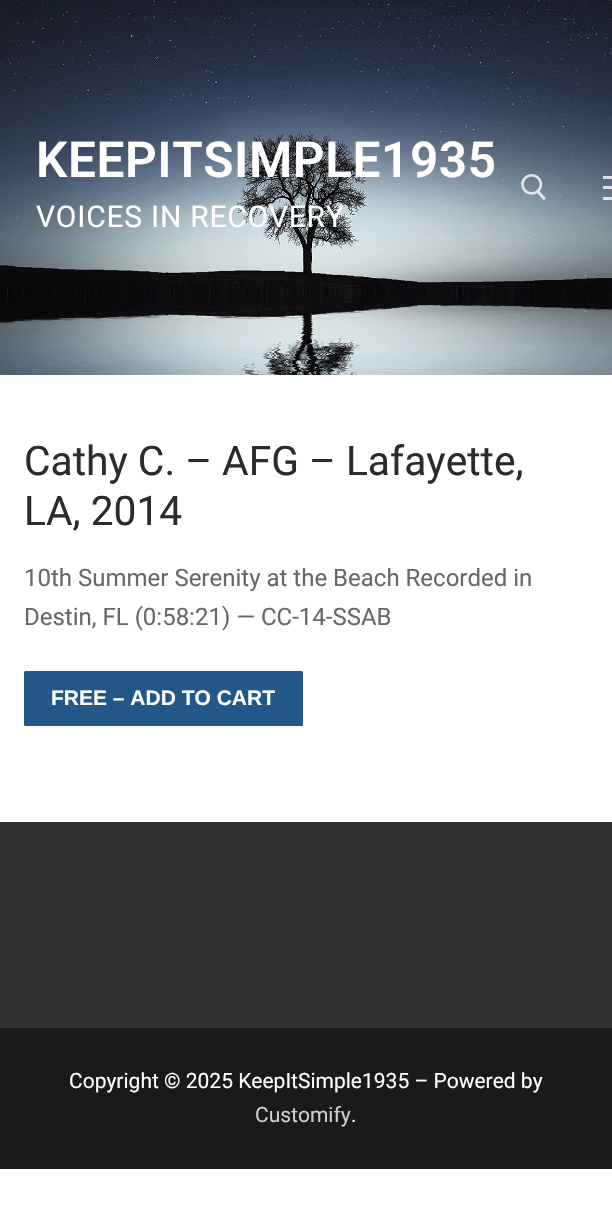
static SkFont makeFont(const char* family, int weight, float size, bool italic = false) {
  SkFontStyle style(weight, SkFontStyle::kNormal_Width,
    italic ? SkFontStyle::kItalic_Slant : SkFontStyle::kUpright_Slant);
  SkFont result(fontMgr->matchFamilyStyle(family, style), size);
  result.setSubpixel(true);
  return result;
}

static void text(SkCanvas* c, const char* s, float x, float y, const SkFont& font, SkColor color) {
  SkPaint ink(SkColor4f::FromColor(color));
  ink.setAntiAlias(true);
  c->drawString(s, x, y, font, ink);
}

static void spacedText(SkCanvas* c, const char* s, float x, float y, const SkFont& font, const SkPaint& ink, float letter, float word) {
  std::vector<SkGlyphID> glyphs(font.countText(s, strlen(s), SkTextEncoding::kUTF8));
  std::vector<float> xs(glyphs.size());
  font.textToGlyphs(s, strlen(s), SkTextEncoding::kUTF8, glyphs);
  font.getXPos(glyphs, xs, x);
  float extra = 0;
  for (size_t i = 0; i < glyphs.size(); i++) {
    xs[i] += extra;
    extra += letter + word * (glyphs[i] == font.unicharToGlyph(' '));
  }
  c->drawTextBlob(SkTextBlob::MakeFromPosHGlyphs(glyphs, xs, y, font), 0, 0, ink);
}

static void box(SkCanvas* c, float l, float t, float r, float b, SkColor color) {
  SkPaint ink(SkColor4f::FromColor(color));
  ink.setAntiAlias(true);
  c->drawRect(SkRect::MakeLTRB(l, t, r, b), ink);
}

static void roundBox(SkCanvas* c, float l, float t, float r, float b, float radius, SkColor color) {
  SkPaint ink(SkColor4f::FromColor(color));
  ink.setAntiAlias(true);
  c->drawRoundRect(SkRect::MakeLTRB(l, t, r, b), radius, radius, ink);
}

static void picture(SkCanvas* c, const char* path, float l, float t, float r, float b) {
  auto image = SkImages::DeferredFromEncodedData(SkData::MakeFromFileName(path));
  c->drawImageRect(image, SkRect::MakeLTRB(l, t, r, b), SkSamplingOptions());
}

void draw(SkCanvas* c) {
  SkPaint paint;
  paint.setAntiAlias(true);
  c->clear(0xffffffff);
  picture(c, "img_01.png", 0, 0, 612, 375);
  SkFont face1 = makeFont("Roboto", 600, 49.5f);
  paint.setColor(0xffffffff);
  spacedText(c, "KEEPITSIMPLE1935", 36, 177, face1, paint, 0.6f, 0);
  SkFont face2 = makeFont("Roboto", 400, 30);
  spacedText(c, "VOICES IN RECOVERY", 36, 227, face2, paint, 0.75f, 0);
  picture(c, "img_02.png", 521, 174, 546, 201);
  box(c, 603, 186, 612, 189, 0xc9ffffff);
  box(c, 603, 176, 612, 179, 0xc9ffffff);
  box(c, 603, 197, 612, 200, 0xc9ffffff);
  SkFont face3 = makeFont("Roboto", 400, 40.75f);
  text(c, "Cathy C. – AFG – Lafayette,", 24, 475, face3, 0xff2b2b2b);
  text(c, "LA, 2014", 24, 525, face3, 0xff2b2b2b);
  SkFont face4 = makeFont("Roboto", 400, 24);
  text(c, "10th Summer Serenity at the Beach Recorded in", 24, 586, face4, 0xff686868);
  text(c, "Destin, FL (0:58:21) — CC-14-SSAB", 24, 625, face4, 0xff686868);
  roundBox(c, 24, 671, 303, 726, 1.5f, 0xff235787);
  SkFont face5 = makeFont("Liberation Sans", 700, 21);
  text(c, "FREE – ADD TO CART", 51, 705, face5, 0xffffffff);
  box(c, 0, 822, 612, 1028, 0xff303030);
  box(c, 0, 1028, 612, 1169, 0xff1a1a1a);
  SkFont face6 = makeFont("Roboto", 400, 21);
  text(c, "Copyright © 2025 KeepItSimple1935 – Powered by", 69, 1088, face6, 0xffffffff);
  text(c, "Customify", 255, 1122, face6, 0xffcfcfcf);
  text(c, ".", 351, 1122, face6, 0xffffffff);
}
